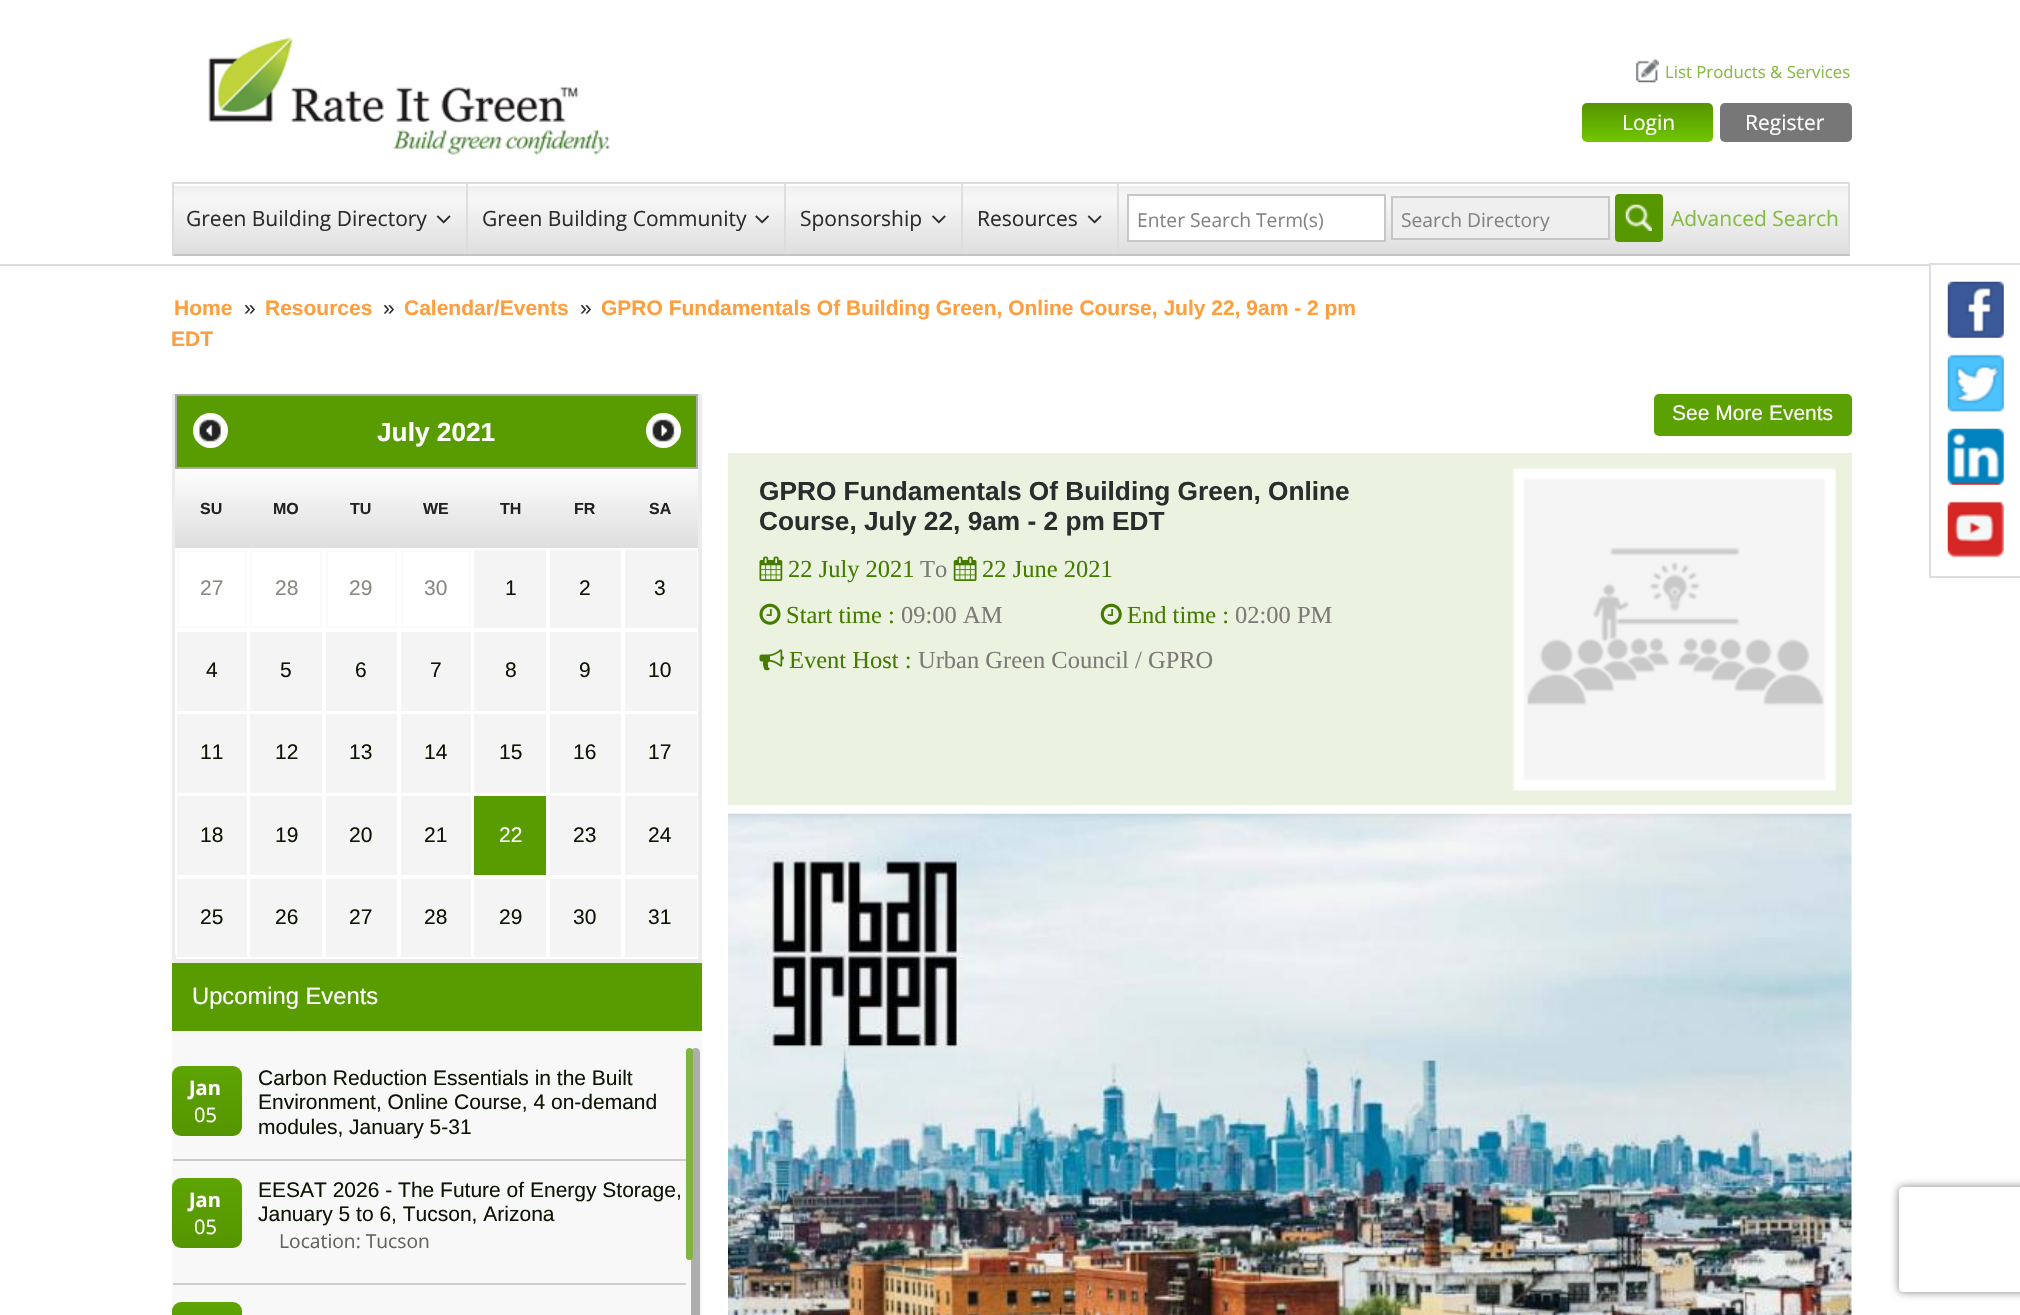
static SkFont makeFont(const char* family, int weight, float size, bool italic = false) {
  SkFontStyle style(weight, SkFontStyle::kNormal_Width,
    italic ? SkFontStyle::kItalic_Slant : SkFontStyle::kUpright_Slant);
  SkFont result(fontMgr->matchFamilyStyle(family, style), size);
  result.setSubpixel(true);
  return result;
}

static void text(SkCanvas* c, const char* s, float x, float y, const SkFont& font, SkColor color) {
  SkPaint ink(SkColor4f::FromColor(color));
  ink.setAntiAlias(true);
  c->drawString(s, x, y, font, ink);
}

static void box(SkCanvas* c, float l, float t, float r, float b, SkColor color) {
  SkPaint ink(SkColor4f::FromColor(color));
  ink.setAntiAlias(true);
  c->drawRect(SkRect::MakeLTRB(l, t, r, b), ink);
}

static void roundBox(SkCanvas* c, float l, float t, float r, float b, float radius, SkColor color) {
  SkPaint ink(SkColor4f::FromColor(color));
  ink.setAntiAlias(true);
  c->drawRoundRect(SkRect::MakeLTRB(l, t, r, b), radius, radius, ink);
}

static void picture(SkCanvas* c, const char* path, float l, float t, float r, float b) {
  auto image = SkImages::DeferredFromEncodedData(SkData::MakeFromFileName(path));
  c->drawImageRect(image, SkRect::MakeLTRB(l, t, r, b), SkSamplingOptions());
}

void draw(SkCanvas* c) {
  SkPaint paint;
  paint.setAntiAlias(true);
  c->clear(0xffffffff);
  box(c, 0, 264, 1929, 266, 0xffdddddd);
  picture(c, "img_01.png", 208, 37, 610, 155);
  picture(c, "img_02.png", 1636, 59, 1659, 83);
  SkFont face1 = makeFont("Open Sans", 400, 16.75f);
  text(c, "List Products & Services", 1665, 78, face1, 0xff85bc43);
  {
    const SkColor colors[] = {0xff549400, 0xff71c700};
    const float stops[] = {0, 1};
    const SkPoint ends[] = {{1648, 103}, {1648, 142}};
    paint.setShader(SkGradientShader::MakeLinear(ends, colors, stops, 2, SkTileMode::kClamp));
    paint.setAlpha(255);
  }
  c->drawRoundRect(SkRect::MakeLTRB(1582, 103, 1713, 142), 5, 5, paint);
  SkFont face2 = makeFont("Open Sans", 400, 21);
  text(c, "Login", 1622, 130, face2, 0xffffffff);
  roundBox(c, 1720, 103, 1852, 142, 5, 0xff777777);
  text(c, "Register", 1745, 130, face2, 0xffffffff);
  {
    const SkColor colors[] = {0xffefefef, 0xfff7f7f7, 0xffdddddd};
    const float stops[] = {0, 0.2f, 1};
    const SkPoint ends[] = {{1011, 185}, {1011, 256}};
    paint.setShader(SkGradientShader::MakeLinear(ends, colors, stops, 3, SkTileMode::kClamp));
    paint.setAlpha(255);
  }
  c->drawRect(SkRect::MakeLTRB(174, 186, 1848, 254), paint);
  box(c, 172, 182, 1850, 184, 0xffdddddd);
  box(c, 1848, 182, 1850, 256, 0xffdddddd);
  box(c, 172, 254, 1850, 256, 0xffc4c4c4);
  box(c, 172, 182, 174, 256, 0xffdddddd);
  text(c, "Green Building Directory", 186, 226, face2, 0xff2b2c2d);
  picture(c, "img_03.png", 436, 215, 451, 224);
  box(c, 466, 184, 468, 254, 0xffdddddd);
  text(c, "Green Building Community", 482, 226, face2, 0xff2b2c2d);
  picture(c, "img_04.png", 755, 215, 769, 224);
  box(c, 784, 184, 786, 254, 0xffdddddd);
  text(c, "Sponsorship", 800, 226, face2, 0xff2b2c2d);
  picture(c, "img_05.png", 932, 215, 946, 224);
  box(c, 961, 184, 963, 254, 0xffdddddd);
  text(c, "Resources", 977, 226, face2, 0xff2b2c2d);
  picture(c, "img_03.png", 1087, 215, 1102, 224);
  box(c, 1117, 184, 1119, 254, 0xffdddddd);
  paint.setShader(nullptr);
  paint.setColor(0xffffffff);
  c->drawRect(SkRect::MakeLTRB(1128, 195, 1385, 241), paint);
  paint.setStyle(SkPaint::kStroke_Style);
  paint.setStrokeWidth(2);
  paint.setColor(0xffc8c7c8);
  c->drawRect(SkRect::MakeLTRB(1128, 195, 1385, 241), paint);
  SkFont face3 = makeFont("Open Sans", 400, 19.25f);
  text(c, "Enter Search Term(s)", 1137, 227, face3, 0xff838383);
  paint.setStyle(SkPaint::kFill_Style);
  paint.setColor(0xffefefef);
  c->drawRect(SkRect::MakeLTRB(1392, 197, 1609, 239), paint);
  paint.setStyle(SkPaint::kStroke_Style);
  paint.setColor(0xffc8c7c8);
  c->drawRect(SkRect::MakeLTRB(1392, 197, 1609, 239), paint);
  c->save();
  c->clipRect(SkRect::MakeLTRB(1402, 205, 1600, 231));
  text(c, "Search Directory", 1401, 227, face3, 0xff838383);
  c->restore();
  roundBox(c, 1615, 194, 1663, 242, 4, 0xff569700);
  picture(c, "img_06.png", 1625, 204, 1652, 231);
  text(c, "Advanced Search", 1671, 226, face2, 0xff85bc43);
  box(c, 1929, 263, 2020, 265, 0xffdddddd);
  box(c, 1929, 576, 2020, 578, 0xffdddddd);
  box(c, 1929, 263, 1931, 578, 0xffdddddd);
  picture(c, "img_07.png", 1947, 281, 2004, 338);
  picture(c, "img_08.png", 1947, 354, 2004, 412);
  picture(c, "img_09.png", 1947, 428, 2004, 485);
  picture(c, "img_10.png", 1947, 501, 2004, 558);
  SkFont face4 = makeFont("Liberation Sans", 700, 21);
  text(c, "Home", 174, 315, face4, 0xffff9e3d);
  SkFont face5 = makeFont("Liberation Sans", 400, 21);
  text(c, "»", 244, 315, face5, 0xff2b2c2d);
  text(c, "Resources", 265, 315, face4, 0xffff9e3d);
  text(c, "»", 383, 315, face5, 0xff2b2c2d);
  text(c, "Calendar/Events", 404, 315, face4, 0xffff9e3d);
  text(c, "»", 580, 315, face5, 0xff2b2c2d);
  text(c, "GPRO Fundamentals Of Building Green, Online Course, July 22, 9am - 2 pm", 601, 315, face4, 0xffff9e3d);
  text(c, "EDT", 171, 346, face4, 0xffff9e3d);
  box(c, 698, 394, 702, 963, 0xffececec);
  box(c, 172, 959, 702, 963, 0xffececec);
  box(c, 172, 394, 176, 963, 0xffececec);
  roundBox(c, 175, 394, 698, 959, 7, 0xffffffff);
  paint.setStyle(SkPaint::kFill_Style);
  paint.setColor(0xff599c01);
  c->drawRect(SkRect::MakeLTRB(176, 395, 697, 468), paint);
  paint.setStyle(SkPaint::kStroke_Style);
  paint.setColor(0xffaaaaaa);
  c->drawRect(SkRect::MakeLTRB(176, 395, 697, 468), paint);
  paint.setStyle(SkPaint::kFill_Style);
  paint.setColor(0xffffffff);
  c->drawCircle(210.5f, 430.5f, 17.5f, paint);
  picture(c, "img_11.png", 199, 419, 221, 442);
  SkFont face6 = makeFont("Liberation Sans", 700, 26.25f);
  text(c, "July 2021", 377, 441, face6, 0xffffffff);
  c->drawCircle(663.5f, 430.5f, 17.5f, paint);
  picture(c, "img_12.png", 652, 419, 675, 442);
  {
    const SkColor colors[] = {0xfffdfdfd, 0xffdedede};
    const float stops[] = {0, 1};
    const SkPoint ends[] = {{437, 469}, {437, 548}};
    paint.setShader(SkGradientShader::MakeLinear(ends, colors, stops, 2, SkTileMode::kClamp));
    paint.setAlpha(255);
  }
  c->drawRect(SkRect::MakeLTRB(175, 470, 698, 548), paint);
  SkFont face7 = makeFont("Liberation Sans", 700, 16);
  text(c, "SU", 200, 514, face7, 0xff222222);
  text(c, "MO", 273, 514, face7, 0xff222222);
  text(c, "TU", 350, 514, face7, 0xff222222);
  text(c, "WE", 423, 514, face7, 0xff222222);
  text(c, "TH", 500, 514, face7, 0xff222222);
  text(c, "FR", 574, 514, face7, 0xff222222);
  text(c, "SA", 649, 514, face7, 0xff222222);
  paint.setStyle(SkPaint::kStroke_Style);
  paint.setShader(nullptr);
  paint.setColor(0xfffafafa);
  c->drawRect(SkRect::MakeLTRB(178, 551, 246, 627), paint);
  text(c, "27", 200, 595, face5, 0xff868a81);
  c->drawRect(SkRect::MakeLTRB(251, 551, 321, 627), paint);
  text(c, "28", 275, 595, face5, 0xff868a81);
  c->drawRect(SkRect::MakeLTRB(327, 551, 396, 627), paint);
  text(c, "29", 349, 595, face5, 0xff868a81);
  c->drawRect(SkRect::MakeLTRB(402, 551, 470, 627), paint);
  text(c, "30", 424, 595, face5, 0xff868a81);
  box(c, 474, 550, 546, 628, 0xfff4f4f4);
  text(c, "1", 505, 595, face5, 0xff0d1503);
  box(c, 550, 550, 621, 628, 0xfff4f4f4);
  text(c, "2", 579, 595, face5, 0xff0d1503);
  box(c, 625, 550, 697, 628, 0xfff4f4f4);
  text(c, "3", 654, 595, face5, 0xff0d1503);
  box(c, 177, 632, 247, 711, 0xfff4f4f4);
  text(c, "4", 206, 677, face5, 0xff0d1503);
  box(c, 250, 632, 322, 711, 0xfff4f4f4);
  text(c, "5", 280, 677, face5, 0xff0d1503);
  box(c, 326, 632, 397, 711, 0xfff4f4f4);
  text(c, "6", 355, 677, face5, 0xff0d1503);
  box(c, 401, 632, 471, 711, 0xfff4f4f4);
  text(c, "7", 430, 677, face5, 0xff0d1503);
  box(c, 474, 632, 546, 711, 0xfff4f4f4);
  text(c, "8", 505, 677, face5, 0xff0d1503);
  box(c, 550, 632, 621, 711, 0xfff4f4f4);
  text(c, "9", 579, 677, face5, 0xff0d1503);
  box(c, 625, 632, 697, 711, 0xfff4f4f4);
  text(c, "10", 648, 677, face5, 0xff0d1503);
  box(c, 177, 714, 247, 793, 0xfff4f4f4);
  text(c, "11", 200, 759, face5, 0xff0d1503);
  box(c, 250, 714, 322, 793, 0xfff4f4f4);
  text(c, "12", 275, 759, face5, 0xff0d1503);
  box(c, 326, 714, 397, 793, 0xfff4f4f4);
  text(c, "13", 349, 759, face5, 0xff0d1503);
  box(c, 401, 714, 471, 793, 0xfff4f4f4);
  text(c, "14", 424, 759, face5, 0xff0d1503);
  box(c, 474, 714, 546, 793, 0xfff4f4f4);
  text(c, "15", 499, 759, face5, 0xff0d1503);
  box(c, 550, 714, 621, 793, 0xfff4f4f4);
  text(c, "16", 573, 759, face5, 0xff0d1503);
  box(c, 625, 714, 697, 793, 0xfff4f4f4);
  text(c, "17", 648, 759, face5, 0xff0d1503);
  box(c, 177, 796, 247, 875, 0xfff4f4f4);
  text(c, "18", 200, 842, face5, 0xff0d1503);
  box(c, 250, 796, 322, 875, 0xfff4f4f4);
  text(c, "19", 275, 842, face5, 0xff0d1503);
  box(c, 326, 796, 397, 875, 0xfff4f4f4);
  text(c, "20", 349, 842, face5, 0xff0d1503);
  box(c, 401, 796, 471, 875, 0xfff4f4f4);
  text(c, "21", 424, 842, face5, 0xff0d1503);
  box(c, 474, 796, 546, 875, 0xff599c01);
  text(c, "22", 499, 842, face5, 0xffffffff);
  box(c, 550, 796, 621, 875, 0xfff4f4f4);
  text(c, "23", 573, 842, face5, 0xff0d1503);
  box(c, 625, 796, 697, 875, 0xfff4f4f4);
  text(c, "24", 648, 842, face5, 0xff0d1503);
  box(c, 177, 879, 247, 957, 0xfff4f4f4);
  text(c, "25", 200, 924, face5, 0xff0d1503);
  box(c, 250, 879, 322, 957, 0xfff4f4f4);
  text(c, "26", 275, 924, face5, 0xff0d1503);
  box(c, 326, 879, 397, 957, 0xfff4f4f4);
  text(c, "27", 349, 924, face5, 0xff0d1503);
  box(c, 401, 879, 471, 957, 0xfff4f4f4);
  text(c, "28", 424, 924, face5, 0xff0d1503);
  box(c, 474, 879, 546, 957, 0xfff4f4f4);
  text(c, "29", 499, 924, face5, 0xff0d1503);
  box(c, 550, 879, 621, 957, 0xfff4f4f4);
  text(c, "30", 573, 924, face5, 0xff0d1503);
  box(c, 625, 879, 697, 957, 0xfff4f4f4);
  text(c, "31", 648, 924, face5, 0xff0d1503);
  box(c, 172, 1031, 702, 1315, 0xfff8f8f8);
  box(c, 172, 963, 702, 1031, 0xff599c01);
  SkFont face8 = makeFont("Liberation Sans", 400, 23.75f);
  text(c, "Upcoming Events", 192, 1004, face8, 0xffffffff);
  box(c, 173, 1159, 686, 1161, 0xffcccccc);
  paint.setStyle(SkPaint::kFill_Style);
  {
    const SkColor colors[] = {0xff5ea403, 0xff559500};
    const float stops[] = {0, 1};
    const SkPoint ends[] = {{207, 1066}, {207, 1136}};
    paint.setShader(SkGradientShader::MakeLinear(ends, colors, stops, 2, SkTileMode::kClamp));
    paint.setAlpha(255);
  }
  c->drawRoundRect(SkRect::MakeLTRB(172, 1066, 242, 1136), 9, 9, paint);
  SkFont face9 = makeFont("Open Sans", 700, 20);
  text(c, "Jan", 189, 1095, face9, 0xffffffff);
  SkFont face10 = makeFont("Open Sans", 400, 20);
  text(c, "05", 194, 1122, face10, 0xffffffff);
  text(c, "Carbon Reduction Essentials in the Built", 258, 1085, face5, 0xff0d1503);
  text(c, "Environment, Online Course, 4 on-demand", 258, 1109, face5, 0xff0d1503);
  text(c, "modules, January 5-31", 258, 1134, face5, 0xff0d1503);
  box(c, 173, 1283, 686, 1285, 0xffcccccc);
  {
    const SkColor colors[] = {0xff5ea403, 0xff559500};
    const float stops[] = {0, 1};
    const SkPoint ends[] = {{207, 1178}, {207, 1248}};
    paint.setShader(SkGradientShader::MakeLinear(ends, colors, stops, 2, SkTileMode::kClamp));
    paint.setAlpha(255);
  }
  c->drawRoundRect(SkRect::MakeLTRB(172, 1178, 242, 1248), 9, 9, paint);
  text(c, "Jan", 189, 1207, face9, 0xffffffff);
  text(c, "05", 194, 1234, face10, 0xffffffff);
  text(c, "EESAT 2026 - The Future of Energy Storage,", 258, 1197, face5, 0xff0d1503);
  text(c, "January 5 to 6, Tucson, Arizona", 258, 1221, face5, 0xff0d1503);
  text(c, "Location: Tucson", 279, 1248, face3, 0xff60635d);
  {
    const SkColor colors[] = {0xff5ea403, 0xff559500};
    const float stops[] = {0, 1};
    const SkPoint ends[] = {{207, 1302}, {207, 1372}};
    paint.setShader(SkGradientShader::MakeLinear(ends, colors, stops, 2, SkTileMode::kClamp));
    paint.setAlpha(255);
  }
  c->drawRoundRect(SkRect::MakeLTRB(172, 1302, 242, 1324), 9, 9, paint);
  roundBox(c, 691, 1048, 700, 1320, 4.5f, 0xffaeaeae);
  roundBox(c, 686, 1048, 693, 1260, 3.5f, 0xff81b33f);
  roundBox(c, 1654, 394, 1852, 436, 5, 0xff5ca102);
  text(c, "See More Events", 1672, 420, face5, 0xffffffff);
  box(c, 728, 453, 1852, 805, 0xffebf3e0);
  text(c, "GPRO Fundamentals Of Building Green, Online", 759, 500, face6, 0xff2b2c2d);
  text(c, "Course, July 22, 9am - 2 pm EDT", 759, 530, face6, 0xff2b2c2d);
  picture(c, "img_13.png", 759, 556, 783, 581);
  SkFont face11 = makeFont("Liberation Serif", 400, 24.5f);
  text(c, "22 July 2021", 788, 577, face11, 0xff447b00);
  text(c, "To", 920, 577, face11, 0xff7d7979);
  picture(c, "img_14.png", 953, 556, 977, 581);
  text(c, "22 June 2021", 982, 577, face11, 0xff447b00);
  picture(c, "img_15.png", 759, 603, 781, 625);
  text(c, "Start time :", 786, 623, face11, 0xff447b00);
  text(c, "09:00 AM", 901, 623, face11, 0xff7d7979);
  picture(c, "img_16.png", 1100, 603, 1122, 625);
  text(c, "End time :", 1127, 623, face11, 0xff447b00);
  text(c, "02:00 PM", 1235, 623, face11, 0xff7d7979);
  picture(c, "img_17.png", 759, 649, 784, 671);
  text(c, "Event Host :", 789, 668, face11, 0xff447b00);
  text(c, "Urban Green Council / GPRO", 918, 668, face11, 0xff7d7979);
  picture(c, "img_18.png", 1512, 467, 1836, 791);
  picture(c, "img_19.png", 728, 813, 1852, 1315);
  c->save();
  c->clipPath(SkPathBuilder(SkPathFillType::kEvenOdd).moveTo(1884, 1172).lineTo(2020, 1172).lineTo(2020, 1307).lineTo(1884, 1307).close().moveTo(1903, 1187).lineTo(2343, 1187).cubicTo(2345, 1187, 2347, 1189, 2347, 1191).lineTo(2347, 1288).cubicTo(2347, 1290, 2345, 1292, 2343, 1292).lineTo(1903, 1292).cubicTo(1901, 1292, 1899, 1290, 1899, 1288).lineTo(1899, 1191).cubicTo(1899, 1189, 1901, 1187, 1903, 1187).close().detach(), true);
  paint.setShader(nullptr);
  paint.setColor(0xff808080);
  paint.setMaskFilter(SkMaskFilter::MakeBlur(kNormal_SkBlurStyle, 4.5f));
  c->drawRoundRect(SkRect::MakeLTRB(1899, 1187, 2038, 1292), 4, 4, paint);
  paint.setMaskFilter(nullptr);
  c->restore();
}
